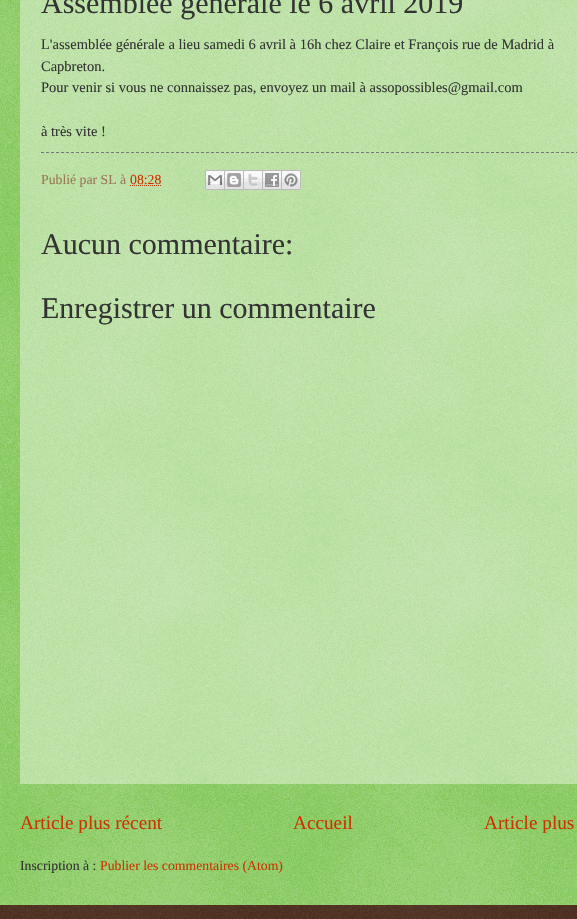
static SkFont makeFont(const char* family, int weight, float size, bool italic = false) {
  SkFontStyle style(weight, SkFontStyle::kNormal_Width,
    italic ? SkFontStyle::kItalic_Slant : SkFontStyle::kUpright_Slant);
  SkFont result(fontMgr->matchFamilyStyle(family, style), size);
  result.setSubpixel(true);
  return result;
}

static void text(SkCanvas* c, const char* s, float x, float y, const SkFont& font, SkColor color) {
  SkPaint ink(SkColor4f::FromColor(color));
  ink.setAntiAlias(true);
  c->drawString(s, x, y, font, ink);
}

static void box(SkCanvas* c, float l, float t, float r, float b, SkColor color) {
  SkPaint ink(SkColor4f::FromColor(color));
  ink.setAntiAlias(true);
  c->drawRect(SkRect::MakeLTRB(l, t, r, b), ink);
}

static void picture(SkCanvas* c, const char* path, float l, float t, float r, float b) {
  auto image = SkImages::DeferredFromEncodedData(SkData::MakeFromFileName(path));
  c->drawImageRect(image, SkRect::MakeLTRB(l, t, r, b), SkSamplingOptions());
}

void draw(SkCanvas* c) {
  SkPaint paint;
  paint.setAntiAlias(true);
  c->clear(0xff66bb33);
  picture(c, "img_01.png", 0, 0, 577, 905);
  box(c, 20, 0, 577, 784, 0x66ffffff);
  SkFont face1 = makeFont("Liberation Serif", 400, 30);
  text(c, "Assemblée générale le 6 avril 2019", 41, 13, face1, 0xff333333);
  SkFont face2 = makeFont("Liberation Serif", 400, 14.5f);
  text(c, "L'assemblée générale a lieu samedi 6 avril à 16h chez Claire et François rue de Madrid à", 41, 49, face2, 0xff333333);
  text(c, "Capbreton.", 41, 71, face2, 0xff333333);
  text(c, "Pour venir si vous ne connaissez pas, envoyez un mail à assopossibles@gmail.com", 41, 92, face2, 0xff333333);
  text(c, "à très vite !", 41, 136, face2, 0xff333333);
  paint.setStyle(SkPaint::kStroke_Style);
  paint.setStrokeWidth(1);
  paint.setColor(0xff777777);
  paint.setPathEffect(SkDashPathEffect::Make({{3, 2}}, 0));
  c->drawPath(SkPathBuilder().moveTo(41, 152.5f).lineTo(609, 152.5f).detach(), paint);
  paint.setPathEffect(nullptr);
  SkFont face3 = makeFont("Liberation Serif", 400, 13.75f);
  text(c, "Publié par SL à", 41, 184, face3, 0xff997755);
  text(c, "08:28", 130, 184, face3, 0xffcc3300);
  paint.setColor(0xffcc3300);
  paint.setPathEffect(SkDashPathEffect::Make({{1, 1}}, 0));
  c->drawPath(SkPathBuilder().moveTo(130, 185.5f).lineTo(161.5f, 185.5f).detach(), paint);
  paint.setPathEffect(nullptr);
  picture(c, "img_02.png", 205, 170, 225, 190);
  picture(c, "img_03.png", 225, 170, 244, 190);
  picture(c, "img_04.png", 244, 170, 263, 190);
  picture(c, "img_05.png", 263, 170, 282, 190);
  picture(c, "img_06.png", 282, 170, 301, 190);
  text(c, "Aucun commentaire:", 41, 254, face1, 0xff333333);
  text(c, "Enregistrer un commentaire", 41, 318, face1, 0xff333333);
  SkFont face4 = makeFont("Liberation Serif", 400, 19.25f);
  text(c, "Article plus récent", 20, 829, face4, 0xffcc3300);
  text(c, "Accueil", 293, 829, face4, 0xffcc3300);
  text(c, "Article plus", 484, 829, face4, 0xffcc3300);
  text(c, "Inscription à :", 20, 870, face3, 0xff333333);
  text(c, "Publier les commentaires (Atom)", 100, 870, face3, 0xffcc3300);
  box(c, 0, 905, 577, 919, 0xff331100);
  picture(c, "img_07.png", 0, 905, 577, 919);
}
